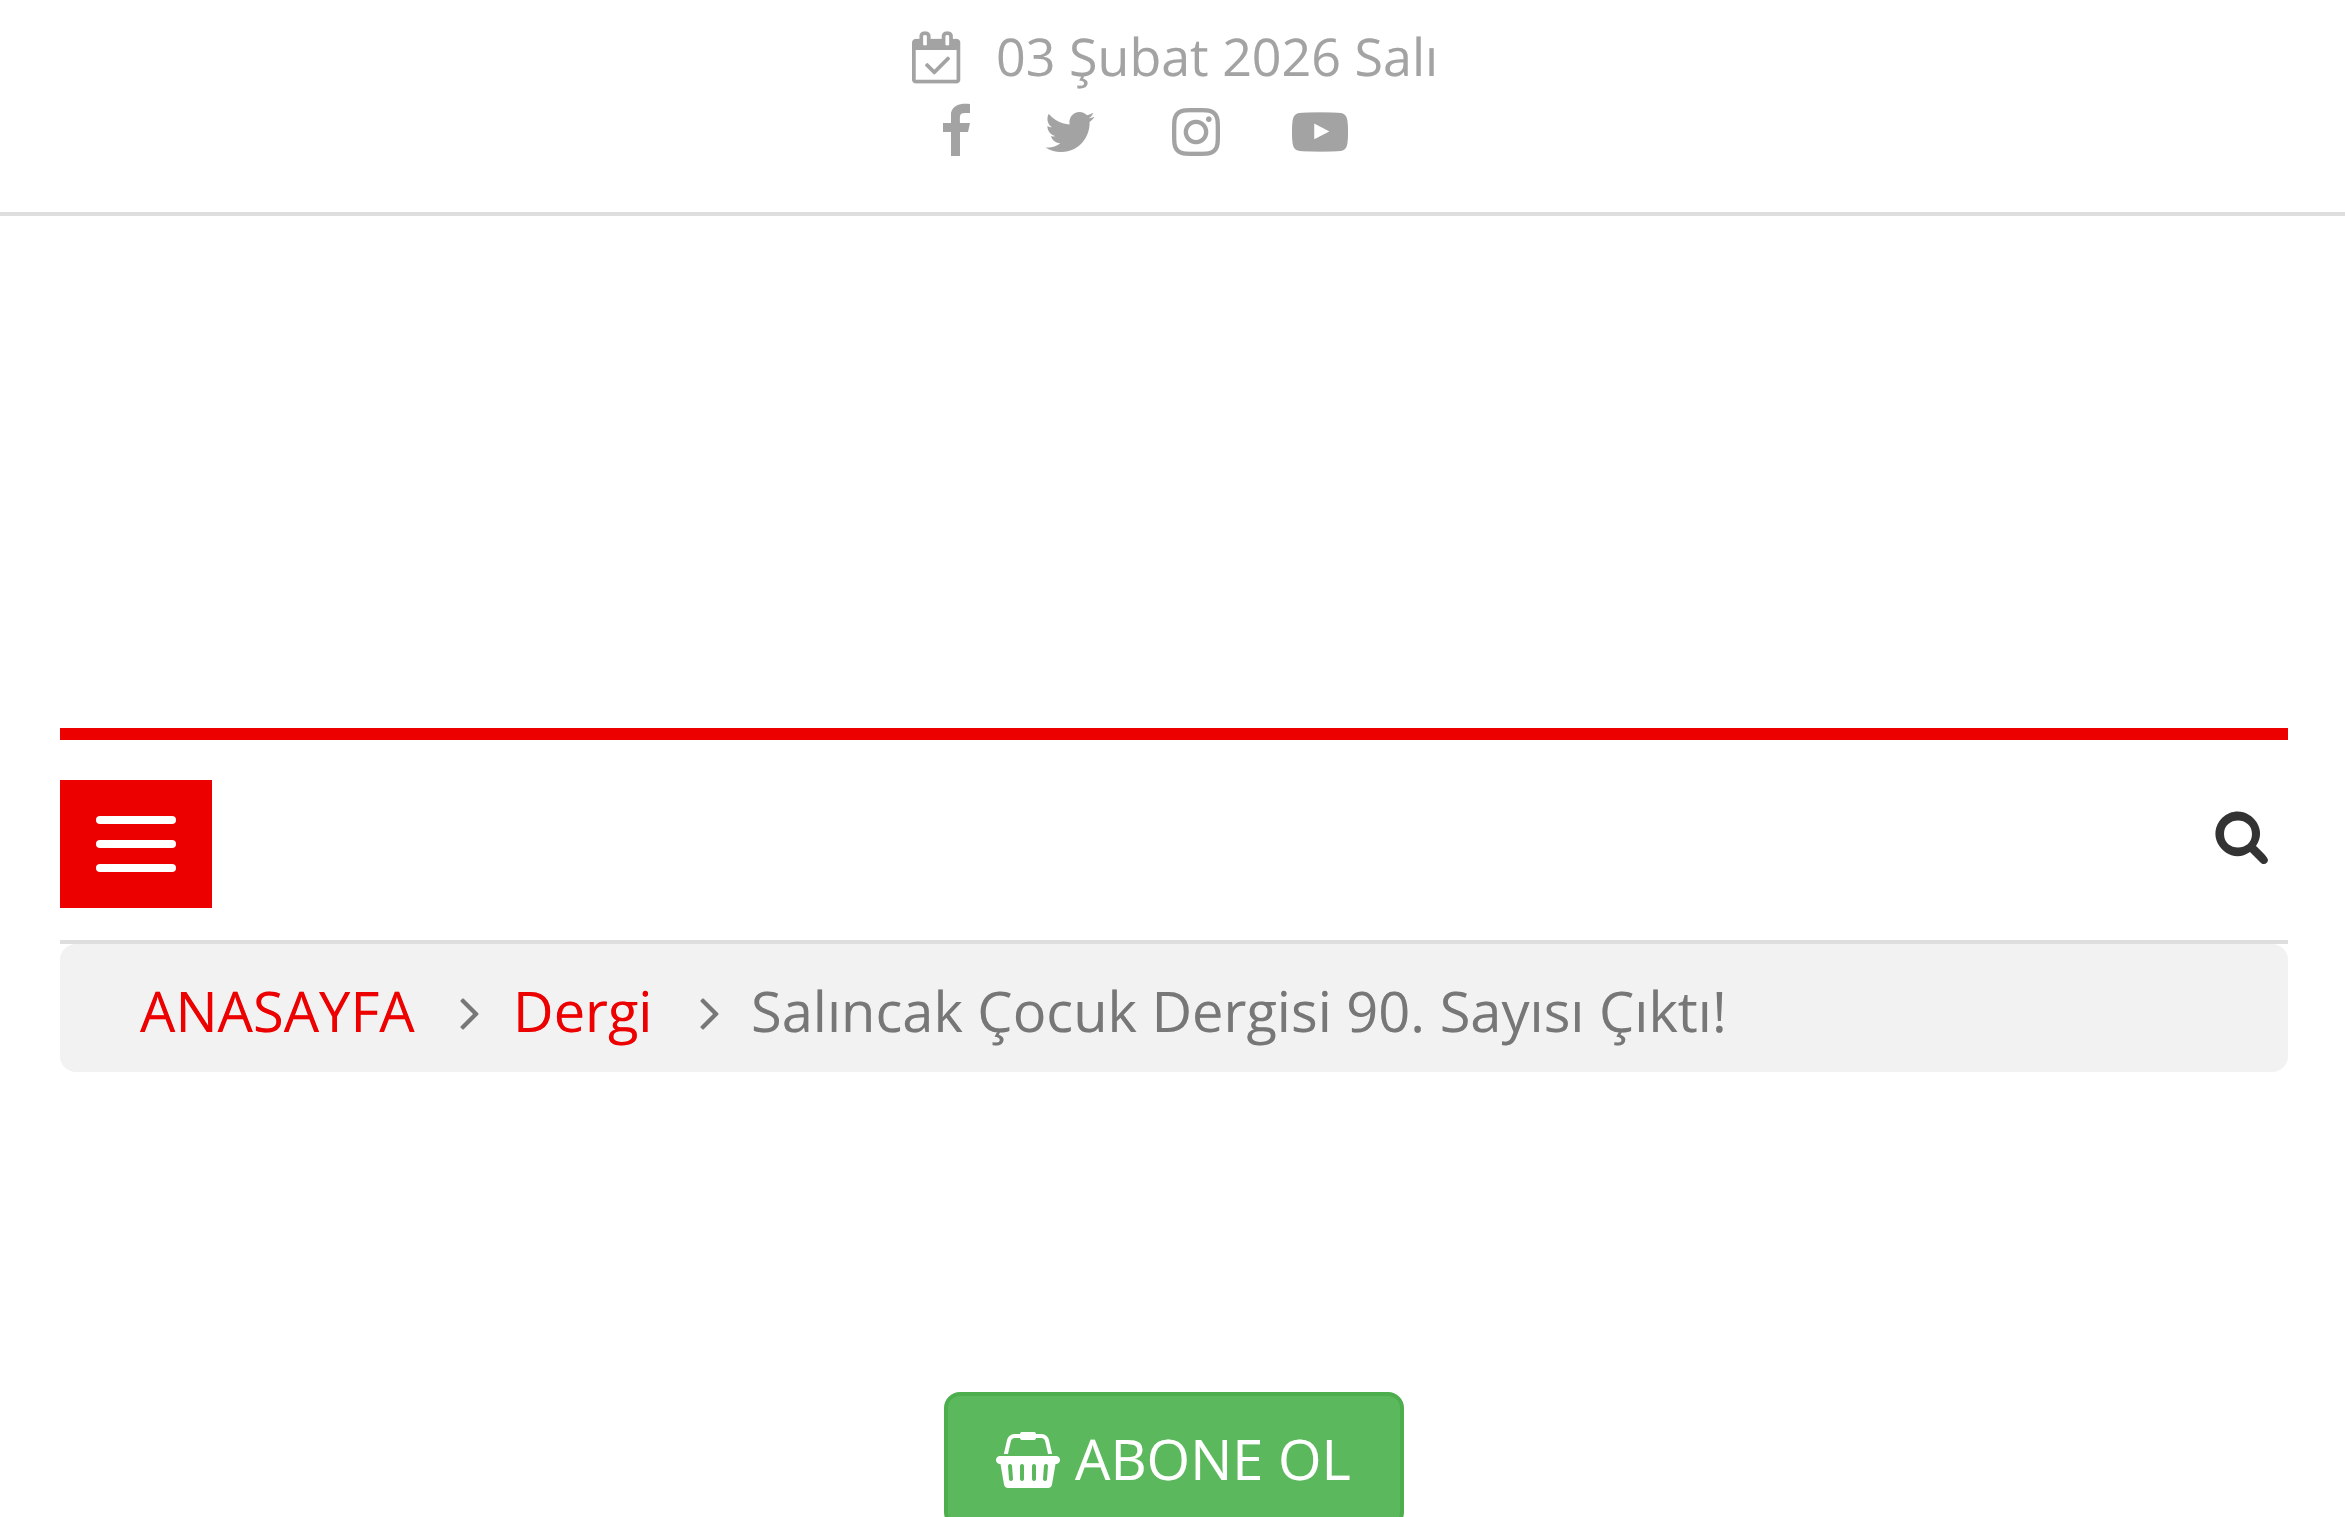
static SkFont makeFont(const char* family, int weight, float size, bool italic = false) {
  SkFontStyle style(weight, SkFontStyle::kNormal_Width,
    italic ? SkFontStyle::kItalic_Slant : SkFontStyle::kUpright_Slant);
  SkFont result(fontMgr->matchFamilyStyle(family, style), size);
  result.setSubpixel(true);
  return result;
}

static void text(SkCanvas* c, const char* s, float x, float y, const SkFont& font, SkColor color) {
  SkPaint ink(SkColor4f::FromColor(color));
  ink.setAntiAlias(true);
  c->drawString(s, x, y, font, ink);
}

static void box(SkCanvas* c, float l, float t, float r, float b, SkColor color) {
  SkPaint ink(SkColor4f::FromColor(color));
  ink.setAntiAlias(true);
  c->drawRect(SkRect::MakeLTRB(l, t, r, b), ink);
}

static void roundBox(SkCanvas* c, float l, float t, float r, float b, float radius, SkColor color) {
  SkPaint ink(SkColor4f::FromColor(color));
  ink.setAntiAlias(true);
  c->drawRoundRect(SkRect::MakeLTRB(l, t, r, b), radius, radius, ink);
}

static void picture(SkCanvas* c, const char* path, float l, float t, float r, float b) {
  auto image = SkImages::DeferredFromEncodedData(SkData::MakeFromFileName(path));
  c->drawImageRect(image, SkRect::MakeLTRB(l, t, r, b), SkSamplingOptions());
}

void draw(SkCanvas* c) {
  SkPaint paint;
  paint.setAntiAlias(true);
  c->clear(0xffffffff);
  box(c, 0, 212, 2345, 216, 0xffdedede);
  picture(c, "img_01.png", 912, 31, 961, 84);
  SkFont face1 = makeFont("Open Sans", 400, 52);
  text(c, "03 Şubat 2026 Salı", 996, 76, face1, 0xffa3a3a3);
  paint.setColor(0xffa3a3a3);
  c->drawPath(SkPathBuilder().moveTo(970, 104).cubicTo(962, 103, 953, 104, 951, 113).lineTo(951, 123).lineTo(943, 123).lineTo(943, 132).lineTo(951, 132).lineTo(951, 156).lineTo(960, 156).lineTo(960, 132).lineTo(968, 132).lineTo(970, 123).lineTo(960, 123).cubicTo(960, 113, 959, 113, 970, 113).close().detach(), paint);
  picture(c, "img_02.png", 1045, 112, 1095, 152);
  picture(c, "img_03.png", 1172, 108, 1220, 156);
  picture(c, "img_04.png", 1292, 112, 1348, 152);
  box(c, 60, 728, 2288, 740, 0xffec0000);
  box(c, 60, 940, 2288, 944, 0xffdedede);
  box(c, 60, 780, 212, 908, 0xffec0000);
  roundBox(c, 96, 816, 176, 824, 4, 0xffffffff);
  roundBox(c, 96, 840, 176, 848, 4, 0xffffffff);
  roundBox(c, 96, 864, 176, 872, 4, 0xffffffff);
  paint.setColor(0xff333333);
  c->drawPath(SkPathBuilder().moveTo(2252, 834).cubicTo(2252, 852, 2224, 852, 2224, 834).cubicTo(2224, 816, 2252, 816, 2252, 834).close().moveTo(2268, 860).cubicTo(2268, 857, 2259, 849, 2256, 846).cubicTo(2271, 825, 2242, 799, 2222, 818).cubicTo(2203, 838, 2229, 867, 2250, 852).lineTo(2261, 863).cubicTo(2262, 864, 2263, 864, 2264, 864).cubicTo(2266, 864, 2268, 862, 2268, 860).close().detach(), paint);
  roundBox(c, 60, 944, 2288, 1072, 16, 0xfff2f2f2);
  SkFont face2 = makeFont("Open Sans", 400, 56);
  text(c, "ANASAYFA", 140, 1032, face2, 0xffec0000);
  picture(c, "img_05.png", 460, 998, 479, 1030);
  text(c, "Dergi", 513, 1032, face2, 0xffec0000);
  picture(c, "img_05.png", 700, 998, 719, 1030);
  text(c, "Salıncak Çocuk Dergisi 90. Sayısı Çıktı!", 751, 1032, face2, 0xff777777);
  paint.setColor(0xff5cb85c);
  c->drawRoundRect(SkRect::MakeLTRB(946, 1394, 1402, 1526), 14, 14, paint);
  paint.setStyle(SkPaint::kStroke_Style);
  paint.setStrokeWidth(4);
  paint.setColor(0xff4cae4c);
  c->drawRoundRect(SkRect::MakeLTRB(946, 1394, 1402, 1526), 14, 14, paint);
  picture(c, "img_06.png", 996, 1432, 1060, 1488);
  text(c, "ABONE OL", 1075, 1480, face2, 0xffffffff);
}
